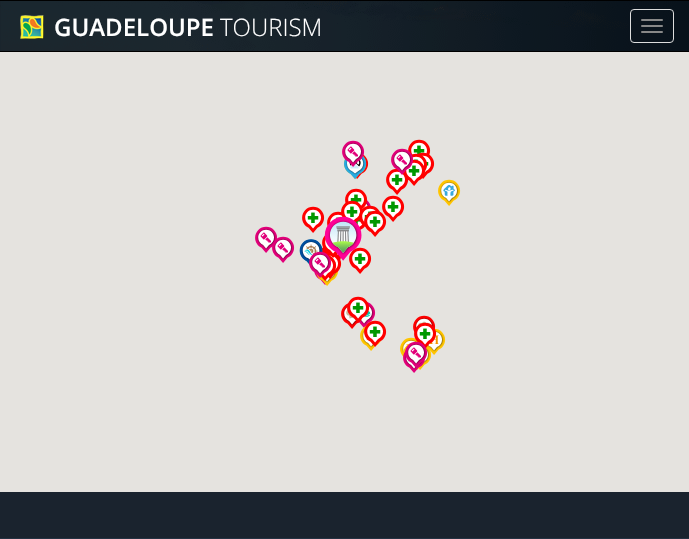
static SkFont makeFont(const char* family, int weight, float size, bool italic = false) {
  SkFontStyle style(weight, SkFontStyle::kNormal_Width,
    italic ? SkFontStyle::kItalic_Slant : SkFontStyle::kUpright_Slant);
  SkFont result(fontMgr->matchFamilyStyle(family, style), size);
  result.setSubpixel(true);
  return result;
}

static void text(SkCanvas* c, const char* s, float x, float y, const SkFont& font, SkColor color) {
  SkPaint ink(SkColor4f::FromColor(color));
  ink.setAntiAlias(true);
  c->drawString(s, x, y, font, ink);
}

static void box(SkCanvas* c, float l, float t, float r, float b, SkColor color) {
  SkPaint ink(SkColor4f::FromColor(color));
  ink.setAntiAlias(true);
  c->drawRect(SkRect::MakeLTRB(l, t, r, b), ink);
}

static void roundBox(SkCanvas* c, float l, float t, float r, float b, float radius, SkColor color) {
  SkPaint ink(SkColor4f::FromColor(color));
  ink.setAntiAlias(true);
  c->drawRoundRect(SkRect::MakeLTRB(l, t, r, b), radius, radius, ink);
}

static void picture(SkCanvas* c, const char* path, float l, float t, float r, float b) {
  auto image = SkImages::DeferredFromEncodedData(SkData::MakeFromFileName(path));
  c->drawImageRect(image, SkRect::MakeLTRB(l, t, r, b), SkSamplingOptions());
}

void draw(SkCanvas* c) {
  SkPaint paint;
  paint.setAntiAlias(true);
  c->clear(0xff253242);
  box(c, 0, 1, 689, 51, 0xff061019);
  picture(c, "img_01.png", 0, 1, 689, 51);
  box(c, 0, 51, 689, 52, 0xff000000);
  box(c, 0, 0, 689, 1, 0xff000000);
  picture(c, "img_02.png", 20, 15, 44, 39);
  SkFont face1 = makeFont("Open Sans", 600, 24);
  text(c, "GUADELOUPE", 54, 36, face1, 0xffffffff);
  SkFont face2 = makeFont("Open Sans", 300, 24);
  text(c, "TOURISM", 220, 36, face2, 0xffffffff);
  paint.setStyle(SkPaint::kStroke_Style);
  paint.setStrokeWidth(1);
  paint.setColor(0xffdddddd);
  c->drawRoundRect(SkRect::MakeLTRB(630.5f, 9.5f, 673.5f, 42.5f), 3.5f, 3.5f, paint);
  roundBox(c, 641, 19, 663, 21, 1, 0xff888888);
  roundBox(c, 641, 25, 663, 27, 1, 0xff888888);
  roundBox(c, 641, 31, 663, 33, 1, 0xff888888);
  box(c, 0, 52, 689, 492, 0xffe5e3df);
  picture(c, "img_07.png", 356, 154, 369, 179);
  picture(c, "img_09.png", 344, 156, 367, 180);
  picture(c, "img_03.png", 342, 140, 365, 167);
  picture(c, "img_05.png", 408, 139, 431, 155);
  picture(c, "img_06.png", 418, 152, 435, 179);
  picture(c, "img_08.png", 411, 153, 428, 173);
  picture(c, "img_10.png", 386, 168, 408, 195);
  picture(c, "img_11.png", 403, 159, 426, 186);
  picture(c, "img_04.png", 391, 148, 414, 175);
  picture(c, "img_12.png", 438, 179, 461, 206);
  picture(c, "img_16.png", 362, 200, 371, 210);
  picture(c, "img_13.png", 345, 188, 368, 209);
  picture(c, "img_23.png", 326, 226, 328, 229);
  picture(c, "img_19.png", 327, 211, 343, 227);
  picture(c, "img_24.png", 356, 219, 365, 231);
  picture(c, "img_15.png", 341, 200, 363, 223);
  picture(c, "img_18.png", 359, 205, 381, 232);
  picture(c, "img_20.png", 364, 210, 387, 237);
  picture(c, "img_14.png", 382, 195, 405, 222);
  picture(c, "img_17.png", 302, 206, 325, 233);
  picture(c, "img_35.png", 340, 258, 341, 259);
  picture(c, "img_28.png", 322, 247, 341, 260);
  picture(c, "img_30.png", 322, 249, 339, 258);
  picture(c, "img_37.png", 314, 272, 326, 285);
  picture(c, "img_36.png", 316, 270, 339, 286);
  picture(c, "img_32.png", 322, 251, 339, 277);
  picture(c, "img_33.png", 325, 253, 342, 279);
  picture(c, "img_27.png", 322, 235, 338, 258);
  picture(c, "img_29.png", 349, 247, 372, 274);
  picture(c, "img_34.png", 316, 254, 337, 281);
  picture(c, "img_26.png", 299, 239, 323, 265);
  picture(c, "img_31.png", 309, 251, 332, 278);
  picture(c, "img_21.png", 324, 216, 362, 261);
  picture(c, "img_22.png", 255, 226, 278, 253);
  picture(c, "img_25.png", 272, 236, 295, 263);
  picture(c, "img_40.png", 358, 302, 376, 328);
  picture(c, "img_39.png", 341, 303, 363, 329);
  picture(c, "img_44.png", 360, 325, 381, 351);
  picture(c, "img_42.png", 364, 320, 387, 347);
  picture(c, "img_38.png", 347, 296, 370, 323);
  picture(c, "img_46.png", 426, 328, 446, 355);
  picture(c, "img_41.png", 413, 315, 436, 333);
  picture(c, "img_45.png", 400, 337, 419, 358);
  picture(c, "img_51.png", 416, 367, 419, 370);
  picture(c, "img_49.png", 418, 346, 432, 370);
  picture(c, "img_43.png", 414, 322, 437, 348);
  picture(c, "img_48.png", 403, 342, 414, 358);
  picture(c, "img_50.png", 403, 350, 426, 373);
  picture(c, "img_47.png", 405, 341, 428, 368);
  box(c, 0, 492, 689, 538, 0xff1a232e);
}
